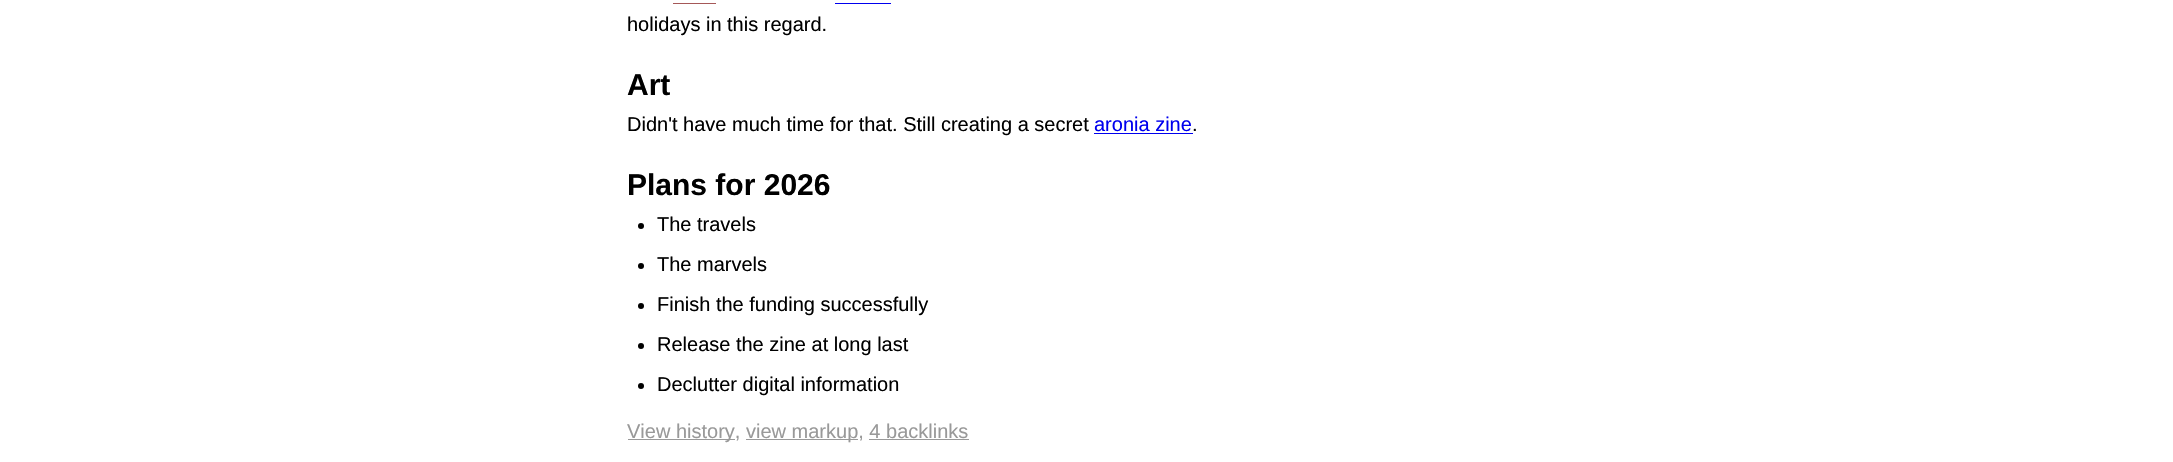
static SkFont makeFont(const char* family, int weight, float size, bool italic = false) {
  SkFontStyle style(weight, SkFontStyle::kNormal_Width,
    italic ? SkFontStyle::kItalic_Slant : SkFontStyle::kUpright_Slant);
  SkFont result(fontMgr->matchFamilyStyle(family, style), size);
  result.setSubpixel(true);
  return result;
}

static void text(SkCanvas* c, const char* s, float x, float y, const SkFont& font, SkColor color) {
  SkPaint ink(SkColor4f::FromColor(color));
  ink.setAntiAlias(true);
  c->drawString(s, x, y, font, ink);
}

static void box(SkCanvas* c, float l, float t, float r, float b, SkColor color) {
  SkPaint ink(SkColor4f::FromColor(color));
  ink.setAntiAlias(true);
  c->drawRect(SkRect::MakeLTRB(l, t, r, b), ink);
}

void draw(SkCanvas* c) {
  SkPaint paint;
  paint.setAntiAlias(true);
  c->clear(0xffffffff);
  box(c, 673, 3, 716, 4, 0xffa55858);
  box(c, 835, 3, 891, 4, 0xff0000ee);
  SkFont face1 = makeFont("Liberation Sans", 400, 20);
  text(c, "holidays in this regard.", 627, 31, face1, 0xff000000);
  SkFont face2 = makeFont("Liberation Sans", 700, 30);
  text(c, "Art", 627, 95, face2, 0xff000000);
  text(c, "Didn't have much time for that. Still creating a secret", 627, 131, face1, 0xff000000);
  text(c, "aronia zine", 1094, 131, face1, 0xff0000ee);
  box(c, 1094, 133, 1193, 134, 0xff0000ee);
  text(c, ".", 1192, 131, face1, 0xff000000);
  text(c, "Plans for 2026", 627, 195, face2, 0xff000000);
  paint.setColor(0xff000000);
  c->drawCircle(641, 226, 3, paint);
  text(c, "The travels", 657, 231, face1, 0xff000000);
  c->drawCircle(641, 266, 3, paint);
  text(c, "The marvels", 657, 271, face1, 0xff000000);
  c->drawCircle(641, 306, 3, paint);
  text(c, "Finish the funding successfully", 657, 311, face1, 0xff000000);
  c->drawCircle(641, 346, 3, paint);
  text(c, "Release the zine at long last", 657, 351, face1, 0xff000000);
  c->drawCircle(641, 386, 3, paint);
  text(c, "Declutter digital information", 657, 391, face1, 0xff000000);
  box(c, 628, 439, 735, 440, 0xff999999);
  text(c, "View history,", 627, 438, face1, 0xff999999);
  box(c, 746, 439, 858, 440, 0xff999999);
  text(c, "view markup, 4 backlinks", 746, 438, face1, 0xff999999);
  box(c, 869, 439, 969, 440, 0xff999999);
}
